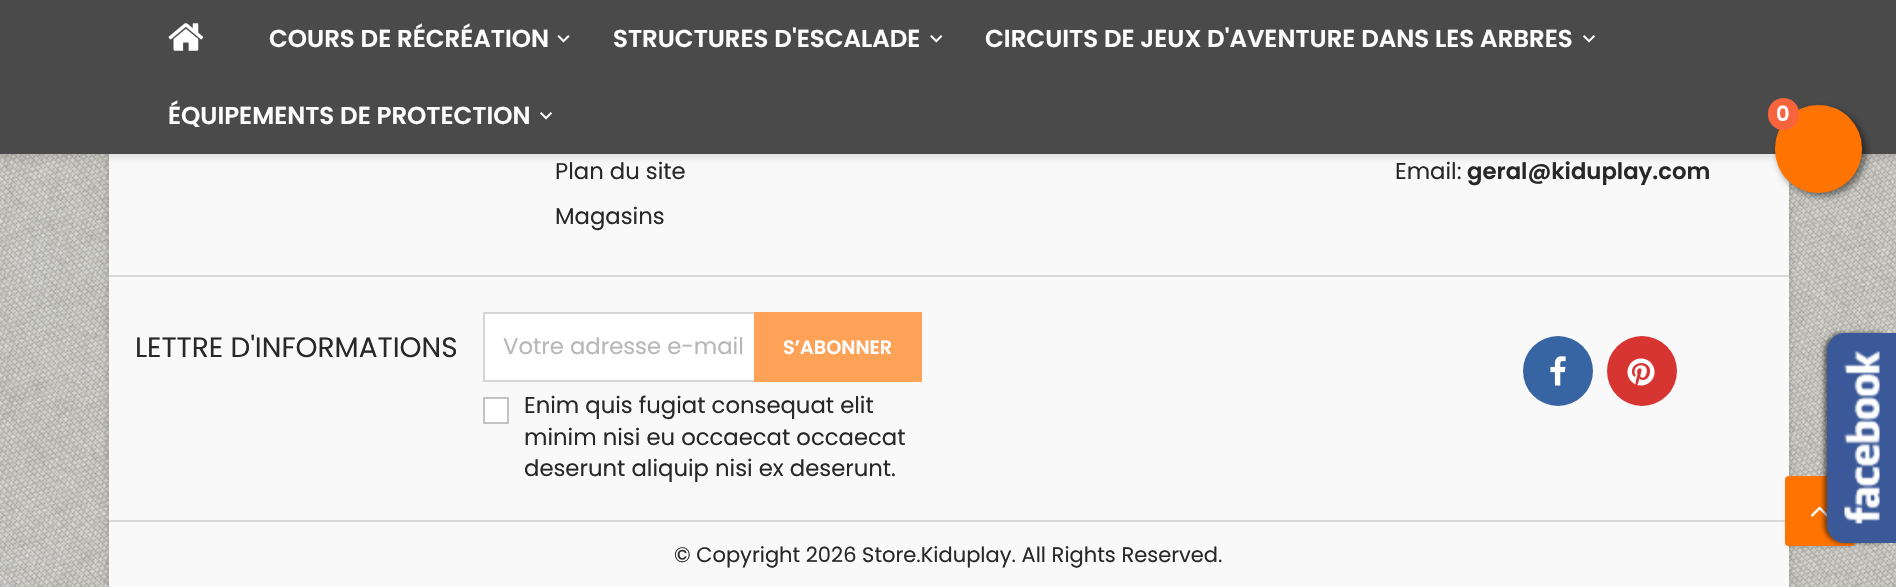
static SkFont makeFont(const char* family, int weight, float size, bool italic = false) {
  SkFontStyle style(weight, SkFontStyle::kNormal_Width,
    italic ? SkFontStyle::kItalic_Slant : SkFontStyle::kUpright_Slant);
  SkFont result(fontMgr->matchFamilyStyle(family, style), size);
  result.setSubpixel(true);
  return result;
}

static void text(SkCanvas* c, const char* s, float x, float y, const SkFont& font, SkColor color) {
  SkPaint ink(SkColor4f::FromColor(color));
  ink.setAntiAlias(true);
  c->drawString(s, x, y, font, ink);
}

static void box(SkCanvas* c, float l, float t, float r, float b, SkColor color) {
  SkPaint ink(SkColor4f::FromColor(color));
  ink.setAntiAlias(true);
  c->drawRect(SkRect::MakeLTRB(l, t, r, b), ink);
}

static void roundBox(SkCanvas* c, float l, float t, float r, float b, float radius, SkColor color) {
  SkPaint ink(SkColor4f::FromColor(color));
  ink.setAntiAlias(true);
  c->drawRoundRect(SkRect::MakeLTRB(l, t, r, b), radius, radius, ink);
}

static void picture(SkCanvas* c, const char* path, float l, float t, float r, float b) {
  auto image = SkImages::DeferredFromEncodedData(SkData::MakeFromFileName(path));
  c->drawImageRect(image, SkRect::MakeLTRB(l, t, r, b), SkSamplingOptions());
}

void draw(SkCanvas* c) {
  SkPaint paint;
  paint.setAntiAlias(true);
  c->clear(0xffffffff);
  picture(c, "img_01.png", 0, 154, 1896, 587);
  paint.setColor(0x33000000);
  paint.setMaskFilter(SkMaskFilter::MakeBlur(kNormal_SkBlurStyle, 3.5f));
  c->drawRect(SkRect::MakeLTRB(109, -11, 1789, 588), paint);
  paint.setMaskFilter(nullptr);
  box(c, 109, 154, 1789, 587, 0xfff9f9f9);
  paint.setColor(0x1a000000);
  paint.setMaskFilter(SkMaskFilter::MakeBlur(kNormal_SkBlurStyle, 3.5f));
  c->drawRect(SkRect::MakeLTRB(0, 4, 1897, 158), paint);
  paint.setMaskFilter(nullptr);
  box(c, 0, 0, 1896, 154, 0xff4a4a4a);
  picture(c, "img_02.png", 168, 23, 204, 51);
  SkFont face1 = makeFont("Poppins", 600, 24.5f);
  text(c, "COURS DE RÉCRÉATION", 269, 47, face1, 0xfffdfdfd);
  picture(c, "img_03.png", 557, 35, 570, 43);
  text(c, "STRUCTURES D'ESCALADE", 613, 47, face1, 0xfffdfdfd);
  picture(c, "img_04.png", 930, 35, 943, 43);
  text(c, "CIRCUITS DE JEUX D'AVENTURE DANS LES ARBRES", 985, 47, face1, 0xfffdfdfd);
  picture(c, "img_05.png", 1583, 35, 1595, 43);
  text(c, "ÉQUIPEMENTS DE PROTECTION", 168, 124, face1, 0xfffdfdfd);
  picture(c, "img_05.png", 540, 112, 552, 120);
  paint.setColor(0x80000000);
  paint.setMaskFilter(SkMaskFilter::MakeBlur(kNormal_SkBlurStyle, 3.5f));
  c->drawRoundRect(SkRect::MakeLTRB(1778, 109, 1866, 196), 43.5f, 43.5f, paint);
  paint.setMaskFilter(nullptr);
  roundBox(c, 1775, 105, 1862, 193, 43.5f, 0xffff7300);
  roundBox(c, 1768, 98, 1799, 130, 15.5f, 0xfff8653d);
  SkFont face2 = makeFont("Poppins", 600, 21);
  text(c, "0", 1776, 121, face2, 0xfffdfdfd);
  SkFont face3 = makeFont("Poppins", 400, 22.75f);
  text(c, "Plan du site", 555, 179, face3, 0xff282828);
  text(c, "Magasins", 555, 224, face3, 0xff282828);
  text(c, "Email:", 1395, 179, face3, 0xff282828);
  SkFont face4 = makeFont("Poppins", 600, 22.75f);
  text(c, "geral@kiduplay.com", 1467, 179, face4, 0xff282828);
  box(c, 109, 520, 1789, 522, 0xffdadada);
  paint.setColor(0x1a000000);
  paint.setMaskFilter(SkMaskFilter::MakeBlur(kNormal_SkBlurStyle, 1));
  c->drawRoundRect(SkRect::MakeLTRB(1785, 478, 1855, 548), 4, 4, paint);
  paint.setMaskFilter(nullptr);
  roundBox(c, 1785, 476, 1855, 546, 4, 0xffff7300);
  picture(c, "img_06.png", 1810, 506, 1827, 517);
  box(c, 109, 275, 1789, 277, 0xffdadada);
  SkFont face5 = makeFont("Poppins", 400, 28);
  text(c, "LETTRE D'INFORMATIONS", 135, 357, face5, 0xff282828);
  box(c, 485, 314, 754, 380, 0xffffffff);
  c->save();
  c->clipRect(SkRect::MakeLTRB(483, 312, 754, 382));
  paint.setStyle(SkPaint::kStroke_Style);
  paint.setStrokeWidth(2);
  paint.setColor(0xffd6d4d4);
  c->drawRect(SkRect::MakeLTRB(484, 313, 928, 381), paint);
  c->restore();
  text(c, "Votre adresse e-mail", 503, 354, face3, 0xffb7b7b7);
  box(c, 754, 312, 922, 382, 0xfffda257);
  SkFont face6 = makeFont("Poppins", 600, 19.25f);
  text(c, "S’ABONNER", 783, 354, face6, 0xfffdfdfd);
  paint.setStyle(SkPaint::kFill_Style);
  paint.setColor(0xffffffff);
  c->drawRect(SkRect::MakeLTRB(484, 398, 508, 423), paint);
  paint.setStyle(SkPaint::kStroke_Style);
  paint.setColor(0xffc3c3c3);
  c->drawRect(SkRect::MakeLTRB(484, 398, 508, 423), paint);
  text(c, "Enim quis fugiat consequat elit", 524, 413, face3, 0xff282828);
  text(c, "minim nisi eu occaecat occaecat", 524, 445, face3, 0xff282828);
  text(c, "deserunt aliquip nisi ex deserunt.", 524, 476, face3, 0xff282828);
  paint.setStyle(SkPaint::kFill_Style);
  paint.setColor(0xff3765a3);
  c->drawCircle(1558, 371, 35, paint);
  picture(c, "img_07.png", 1550, 356, 1566, 386);
  paint.setColor(0xffd73532);
  c->drawCircle(1642, 371, 35, paint);
  picture(c, "img_08.png", 1627, 358, 1655, 386);
  SkFont face7 = makeFont("Poppins", 400, 21);
  text(c, "© Copyright 2026 Store.Kiduplay. All Rights Reserved.", 674, 562, face7, 0xff282828);
  paint.setColor(0x80000000);
  paint.setMaskFilter(SkMaskFilter::MakeBlur(kNormal_SkBlurStyle, 2));
  c->drawRoundRect(SkRect::MakeLTRB(1824, 333, 1894, 543), 18, 18, paint);
  paint.setMaskFilter(nullptr);
  paint.setColor(0xff3b5998);
  c->drawPath(SkPathBuilder().moveTo(1845, 333).lineTo(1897, 333).lineTo(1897, 543).lineTo(1845, 543).cubicTo(1835, 543, 1827, 535, 1827, 525).lineTo(1827, 351).cubicTo(1827, 341, 1835, 333, 1845, 333).close().detach(), paint);
  picture(c, "img_09.png", 1844, 351, 1880, 524);
}
